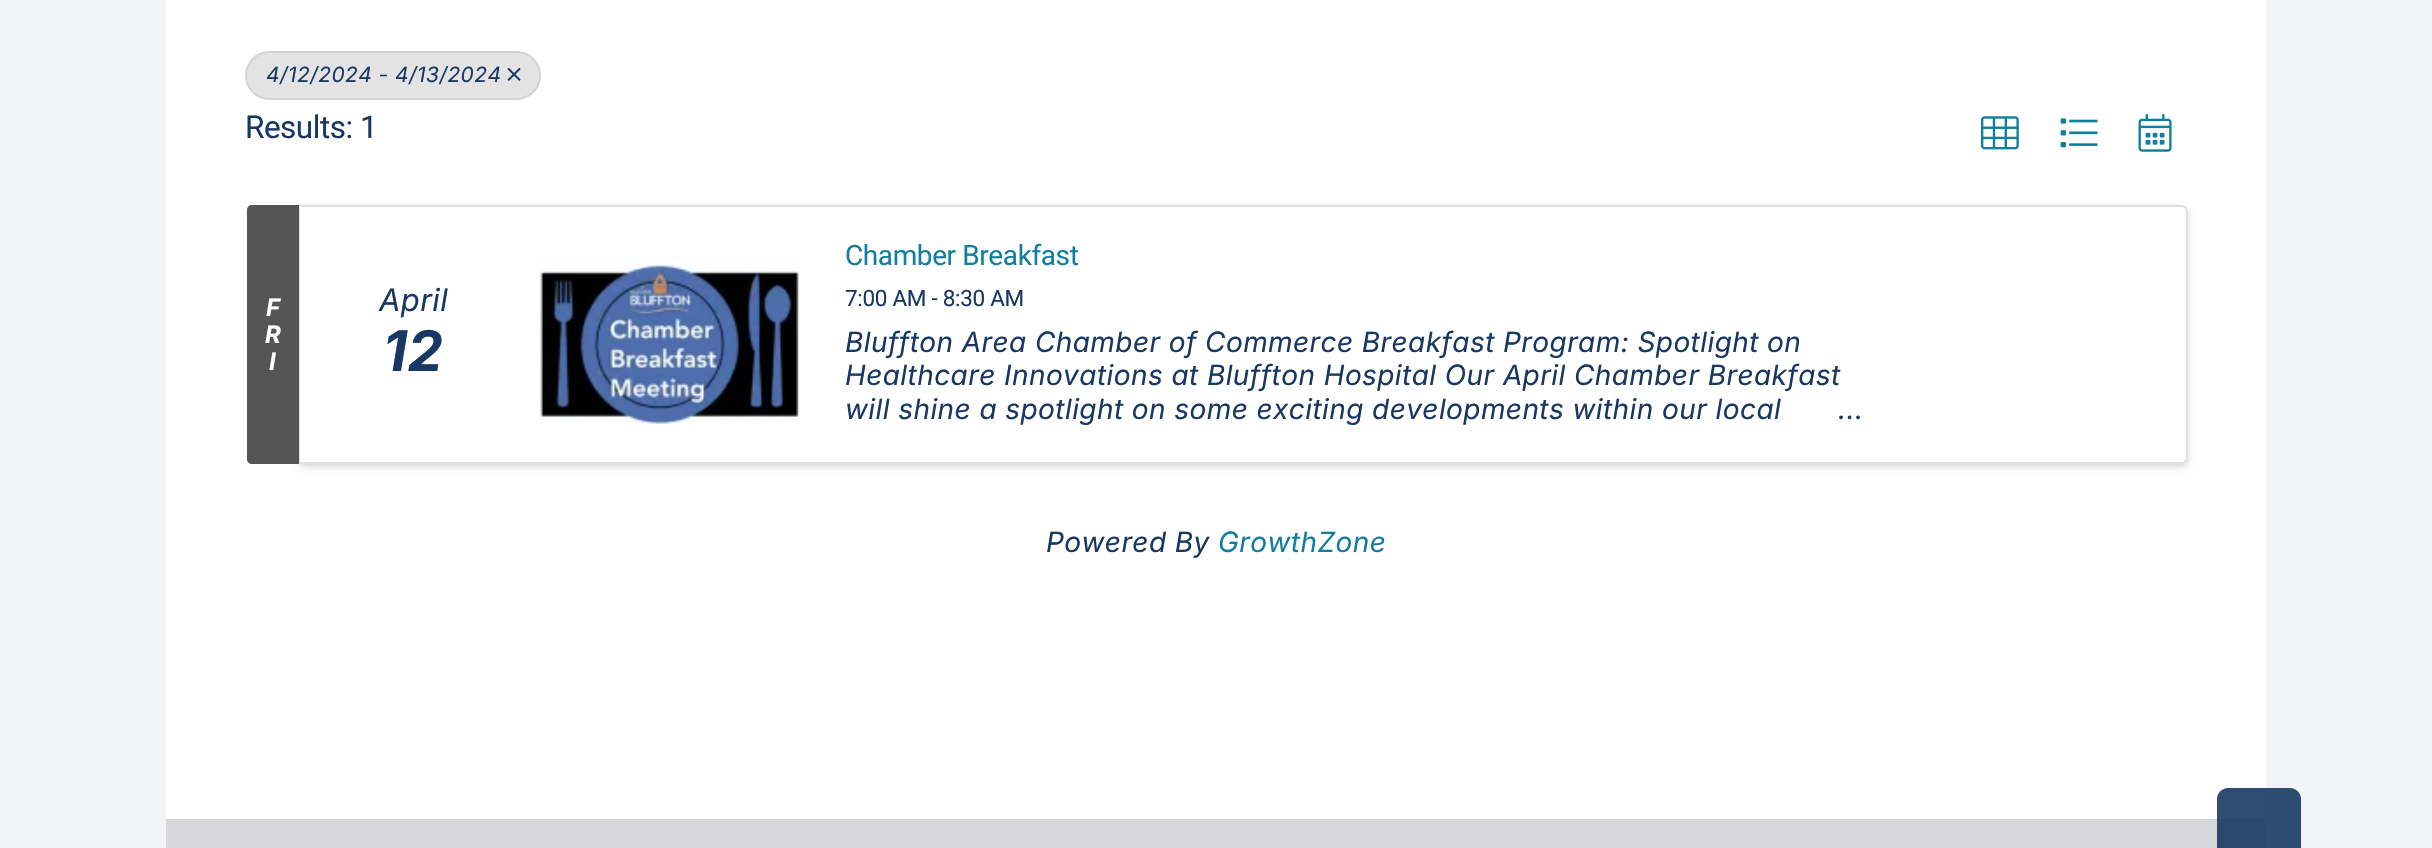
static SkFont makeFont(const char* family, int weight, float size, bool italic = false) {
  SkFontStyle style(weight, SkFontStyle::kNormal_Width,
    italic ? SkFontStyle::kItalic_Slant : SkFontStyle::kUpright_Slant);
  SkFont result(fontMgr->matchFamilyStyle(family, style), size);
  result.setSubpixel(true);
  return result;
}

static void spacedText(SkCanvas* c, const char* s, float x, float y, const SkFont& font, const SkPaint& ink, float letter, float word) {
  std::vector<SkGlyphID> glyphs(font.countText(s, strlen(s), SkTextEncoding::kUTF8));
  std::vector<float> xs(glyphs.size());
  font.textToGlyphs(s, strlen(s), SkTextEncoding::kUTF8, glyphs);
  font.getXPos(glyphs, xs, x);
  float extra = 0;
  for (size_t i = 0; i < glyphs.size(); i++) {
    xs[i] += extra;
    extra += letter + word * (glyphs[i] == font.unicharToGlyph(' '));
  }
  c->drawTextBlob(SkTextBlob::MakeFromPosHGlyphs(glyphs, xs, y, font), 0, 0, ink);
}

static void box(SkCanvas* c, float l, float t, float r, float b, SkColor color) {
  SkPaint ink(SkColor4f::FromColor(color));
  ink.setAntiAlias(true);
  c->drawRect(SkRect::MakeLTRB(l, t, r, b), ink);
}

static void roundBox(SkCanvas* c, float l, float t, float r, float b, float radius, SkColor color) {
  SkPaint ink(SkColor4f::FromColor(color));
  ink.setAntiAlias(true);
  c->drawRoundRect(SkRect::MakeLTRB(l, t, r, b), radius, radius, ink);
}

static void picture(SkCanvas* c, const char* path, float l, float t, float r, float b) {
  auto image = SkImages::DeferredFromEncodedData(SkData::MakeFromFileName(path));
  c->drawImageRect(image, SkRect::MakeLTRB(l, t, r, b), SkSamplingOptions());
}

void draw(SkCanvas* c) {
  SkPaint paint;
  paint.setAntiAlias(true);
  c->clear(0xfff2f3f5);
  box(c, 166, 0, 2266, 819, 0xffffffff);
  roundBox(c, 245, 51, 541, 100, 24.5f, 0xffe3e3e3);
  paint.setStyle(SkPaint::kStroke_Style);
  paint.setStrokeWidth(2);
  paint.setColor(0x12000000);
  c->drawRoundRect(SkRect::MakeLTRB(246, 52, 540, 99), 23.5f, 23.5f, paint);
  SkFont face1 = makeFont("Inter", 400, 21, true);
  paint.setStyle(SkPaint::kFill_Style);
  paint.setColor(0xff183863);
  spacedText(c, "4/12/2024 - 4/13/2024", 266, 82, face1, paint, 0.42f, 0);
  picture(c, "img_01.png", 507, 67, 521, 81);
  SkFont face2 = makeFont("Roboto", 400, 31.5f);
  spacedText(c, "Results: 1", 245, 138, face2, paint, -0.5f, 0);
  picture(c, "img_02.png", 1981, 116, 2019, 150);
  picture(c, "img_03.png", 2060, 118, 2098, 148);
  picture(c, "img_04.png", 2138, 113, 2172, 152);
  paint.setColor(0x26000000);
  paint.setMaskFilter(SkMaskFilter::MakeBlur(kNormal_SkBlurStyle, 3));
  c->drawRoundRect(SkRect::MakeLTRB(298, 208, 2188, 467), 7, 7, paint);
  paint.setMaskFilter(nullptr);
  paint.setColor(0xffffffff);
  c->drawPath(SkPathBuilder().moveTo(298, 205).lineTo(2181, 205).cubicTo(2185, 205, 2188, 208, 2188, 212).lineTo(2188, 457).cubicTo(2188, 461, 2185, 464, 2181, 464).lineTo(298, 464).close().detach(), paint);
  paint.setStyle(SkPaint::kStroke_Style);
  paint.setColor(0x1f000000);
  c->drawPath(SkPathBuilder().moveTo(299, 206).lineTo(2181, 206).cubicTo(2184.5f, 206, 2187, 208.5f, 2187, 212).lineTo(2187, 457).cubicTo(2187, 460.5f, 2184.5f, 463, 2181, 463).lineTo(299, 463).close().detach(), paint);
  paint.setStyle(SkPaint::kFill_Style);
  paint.setColor(0xff555555);
  c->drawPath(SkPathBuilder().moveTo(252, 205).lineTo(299, 205).lineTo(299, 464).lineTo(252, 464).cubicTo(249, 464, 247, 462, 247, 459).lineTo(247, 210).cubicTo(247, 207, 249, 205, 252, 205).close().detach(), paint);
  SkFont face3 = makeFont("Inter", 700, 24, true);
  paint.setColor(0xffffffff);
  spacedText(c, "F", 266, 316, face3, paint, 0.42f, 0);
  spacedText(c, "R", 265, 343, face3, paint, 0.42f, 0);
  spacedText(c, "I", 269, 370, face3, paint, 0.42f, 0);
  SkFont face4 = makeFont("Inter", 400, 31, true);
  paint.setColor(0xff183863);
  spacedText(c, "April", 379, 311, face4, paint, 0.42f, 0);
  SkFont face5 = makeFont("Inter", 700, 56, true);
  spacedText(c, "12", 383, 371, face5, paint, 0.42f, 0);
  picture(c, "img_05.png", 539, 256, 799, 425);
  SkFont face6 = makeFont("Roboto", 400, 28);
  paint.setColor(0xff127e9e);
  spacedText(c, "Chamber Breakfast", 845, 265, face6, paint, -0.4f, 0);
  SkFont face7 = makeFont("Roboto", 400, 22.5f);
  paint.setColor(0xff183863);
  spacedText(c, "7:00 AM - 8:30 AM", 845, 306, face7, paint, -0.3f, 0);
  SkFont face8 = makeFont("Inter", 400, 28, true);
  spacedText(c, "Bluffton Area Chamber of Commerce Breakfast Program: Spotlight on", 845, 352, face8, paint, 0.42f, 0);
  spacedText(c, "Healthcare Innovations at Bluffton Hospital Our April Chamber Breakfast", 845, 385, face8, paint, 0.42f, 0);
  spacedText(c, "will shine a spotlight on some exciting developments within our local", 845, 419, face8, paint, 0.42f, 0);
  spacedText(c, "...", 1838, 419, face8, paint, 0.42f, 0);
  spacedText(c, "Powered By", 1046, 552, face8, paint, 0.42f, 0);
  paint.setColor(0xff127e9e);
  spacedText(c, "GrowthZone", 1218, 552, face8, paint, 0.42f, 0);
  box(c, 166, 819, 2266, 848, 0xffd7d6d8);
  paint.setColor(0xe6183863);
  c->drawPath(SkPathBuilder().moveTo(2228, 788).lineTo(2290, 788).cubicTo(2296, 788, 2301, 793, 2301, 799).lineTo(2301, 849).lineTo(2217, 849).lineTo(2217, 799).cubicTo(2217, 793, 2222, 788, 2228, 788).close().detach(), paint);
}
